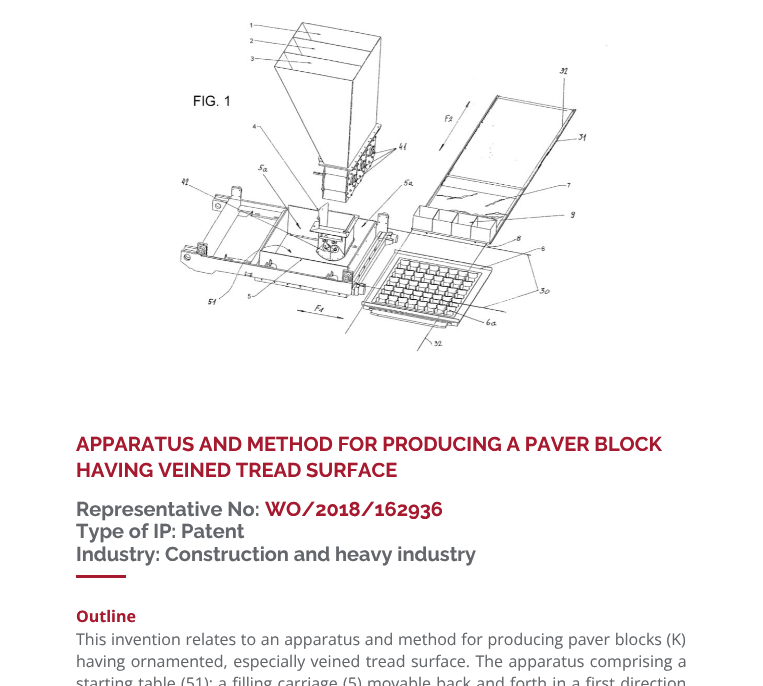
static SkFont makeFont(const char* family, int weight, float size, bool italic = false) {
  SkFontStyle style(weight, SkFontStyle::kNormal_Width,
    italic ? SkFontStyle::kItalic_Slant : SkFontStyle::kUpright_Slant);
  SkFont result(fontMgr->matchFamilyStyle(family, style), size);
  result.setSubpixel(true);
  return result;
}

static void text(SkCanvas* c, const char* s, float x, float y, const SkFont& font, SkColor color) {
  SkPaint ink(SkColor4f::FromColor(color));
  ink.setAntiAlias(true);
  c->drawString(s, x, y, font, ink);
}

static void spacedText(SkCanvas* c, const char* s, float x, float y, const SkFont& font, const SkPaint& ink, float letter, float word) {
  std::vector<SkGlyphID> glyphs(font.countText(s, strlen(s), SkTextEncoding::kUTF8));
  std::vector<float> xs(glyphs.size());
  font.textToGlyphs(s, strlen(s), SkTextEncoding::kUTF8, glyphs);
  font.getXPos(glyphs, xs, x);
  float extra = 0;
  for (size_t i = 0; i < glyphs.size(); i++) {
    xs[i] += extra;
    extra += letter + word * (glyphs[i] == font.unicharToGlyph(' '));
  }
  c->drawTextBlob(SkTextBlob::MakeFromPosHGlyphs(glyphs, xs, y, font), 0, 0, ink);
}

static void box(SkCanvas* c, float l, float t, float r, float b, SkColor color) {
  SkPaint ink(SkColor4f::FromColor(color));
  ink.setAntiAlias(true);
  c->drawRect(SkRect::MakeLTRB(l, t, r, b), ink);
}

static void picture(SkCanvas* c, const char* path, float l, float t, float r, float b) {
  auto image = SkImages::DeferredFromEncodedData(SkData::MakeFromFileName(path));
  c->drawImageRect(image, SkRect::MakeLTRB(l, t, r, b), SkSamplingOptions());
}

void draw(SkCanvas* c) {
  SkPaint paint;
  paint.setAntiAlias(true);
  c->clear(0xffffffff);
  picture(c, "img_01.png", 180, 21, 608, 352);
  SkFont face1 = makeFont("Raleway", 100, 20);
  text(c, "APPARATUS AND METHOD FOR PRODUCING A PAVER BLOCK", 76, 451, face1, 0xffa6192e);
  text(c, "HAVING VEINED TREAD SURFACE", 76, 477, face1, 0xffa6192e);
  text(c, "Representative No:", 76, 516, face1, 0xff63666a);
  text(c, "WO/2018/162936", 265, 516, face1, 0xffa6192e);
  text(c, "Type of IP: Patent", 76, 538, face1, 0xff63666a);
  text(c, "Industry: Construction and heavy industry", 76, 561, face1, 0xff63666a);
  box(c, 76, 575, 126, 578, 0xffa6192e);
  SkFont face2 = makeFont("Open Sans", 700, 16);
  text(c, "Outline", 76, 622, face2, 0xffa6192e);
  SkFont face3 = makeFont("Open Sans", 400, 16);
  paint.setColor(0xff63666a);
  spacedText(c, "This invention relates to an apparatus and method for producing paver blocks (K)", 76, 645, face3, paint, 0, 0.5f);
  spacedText(c, "having ornamented, especially veined tread surface. The apparatus comprising a", 76, 667, face3, paint, 0, 1.25f);
  spacedText(c, "starting table (51); a filling carriage (5) movable back and forth in a first direction", 76, 689, face3, paint, 0, 1.1f);
}
